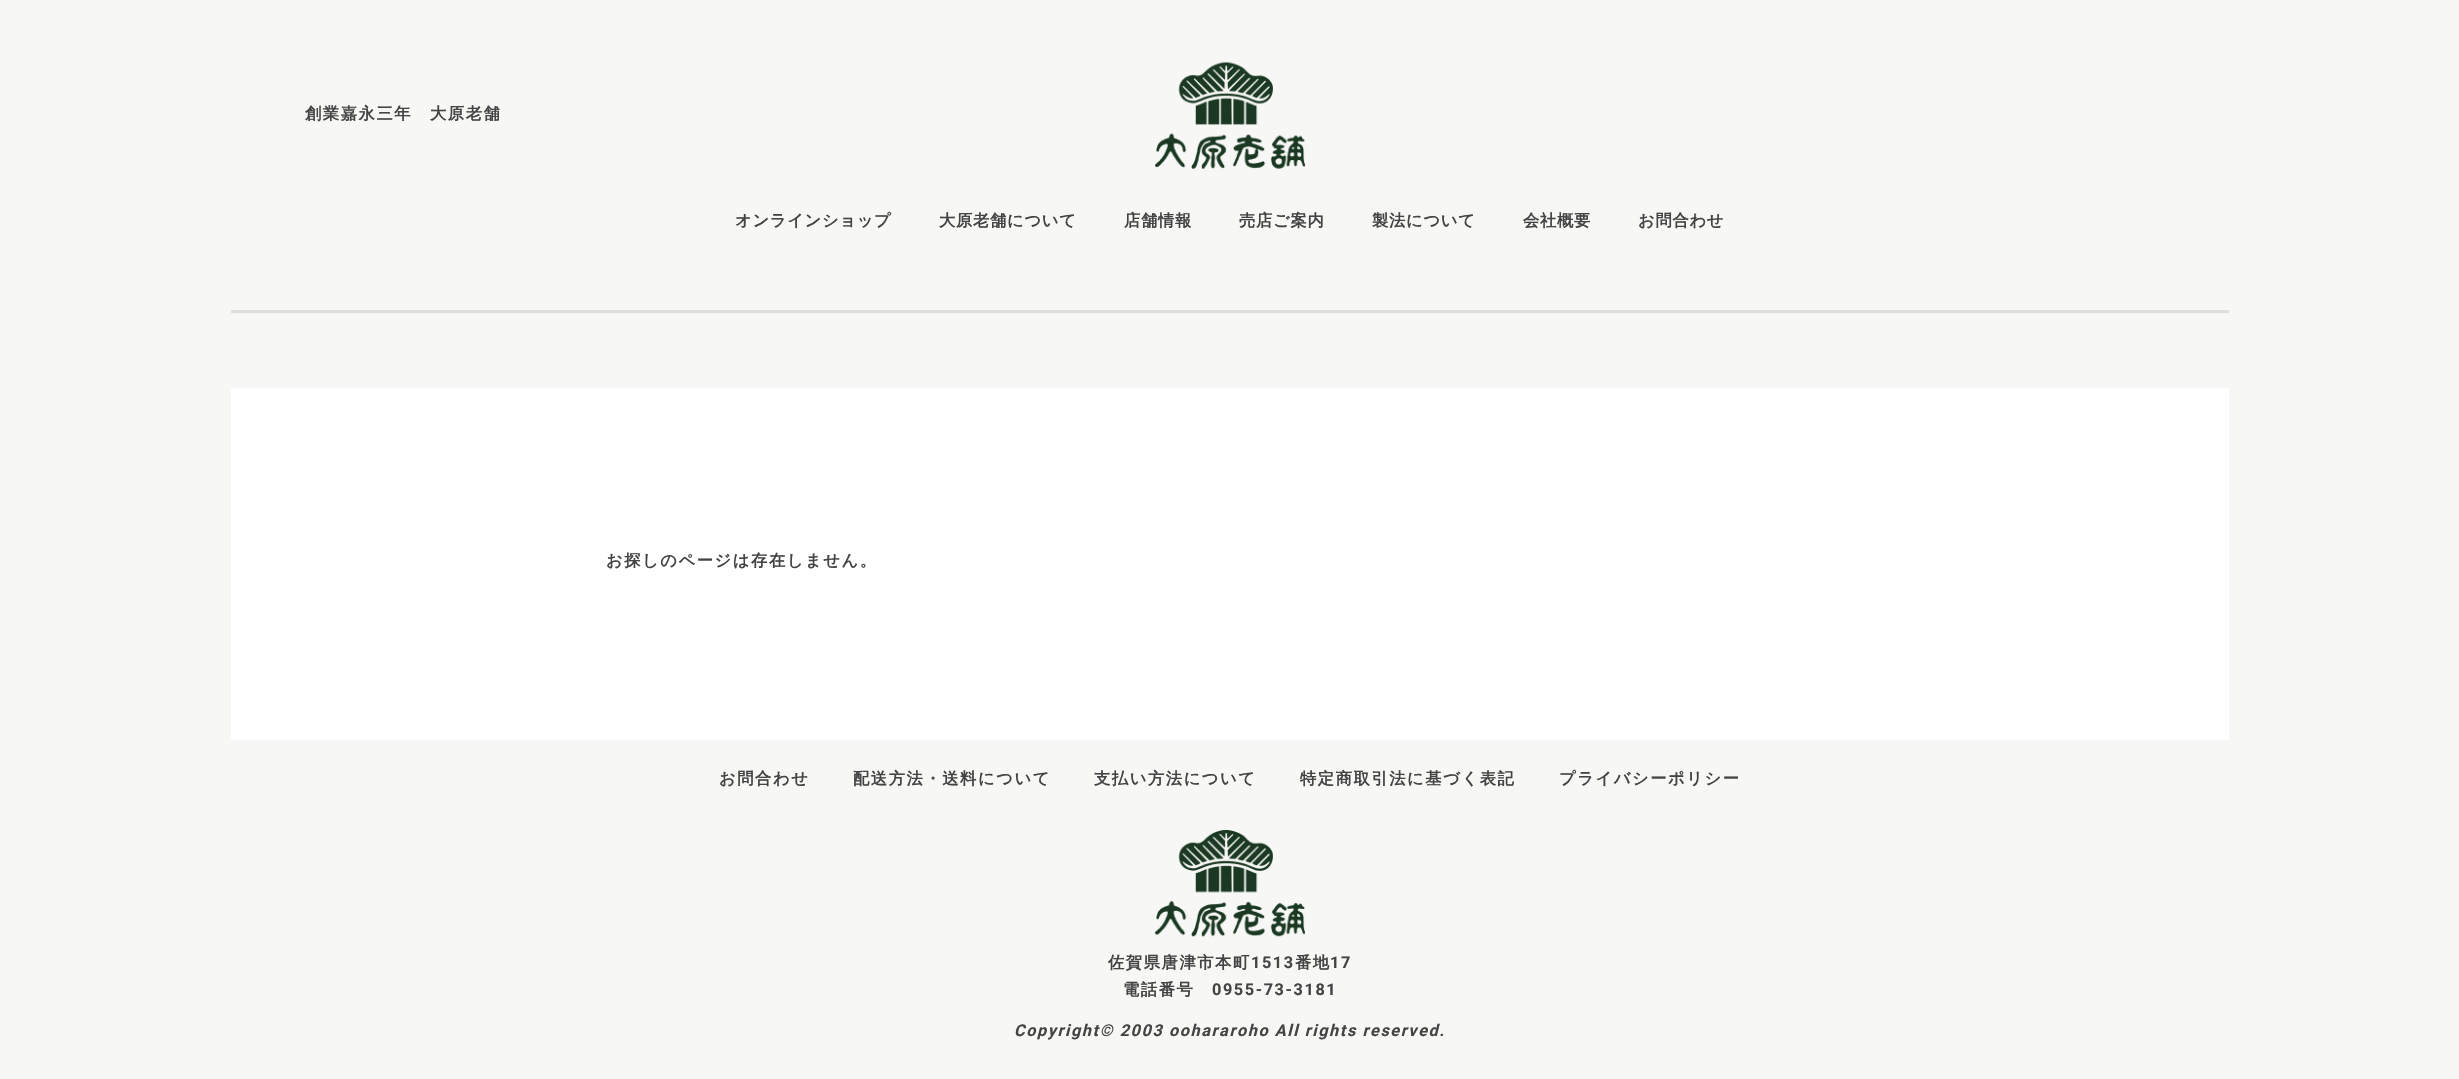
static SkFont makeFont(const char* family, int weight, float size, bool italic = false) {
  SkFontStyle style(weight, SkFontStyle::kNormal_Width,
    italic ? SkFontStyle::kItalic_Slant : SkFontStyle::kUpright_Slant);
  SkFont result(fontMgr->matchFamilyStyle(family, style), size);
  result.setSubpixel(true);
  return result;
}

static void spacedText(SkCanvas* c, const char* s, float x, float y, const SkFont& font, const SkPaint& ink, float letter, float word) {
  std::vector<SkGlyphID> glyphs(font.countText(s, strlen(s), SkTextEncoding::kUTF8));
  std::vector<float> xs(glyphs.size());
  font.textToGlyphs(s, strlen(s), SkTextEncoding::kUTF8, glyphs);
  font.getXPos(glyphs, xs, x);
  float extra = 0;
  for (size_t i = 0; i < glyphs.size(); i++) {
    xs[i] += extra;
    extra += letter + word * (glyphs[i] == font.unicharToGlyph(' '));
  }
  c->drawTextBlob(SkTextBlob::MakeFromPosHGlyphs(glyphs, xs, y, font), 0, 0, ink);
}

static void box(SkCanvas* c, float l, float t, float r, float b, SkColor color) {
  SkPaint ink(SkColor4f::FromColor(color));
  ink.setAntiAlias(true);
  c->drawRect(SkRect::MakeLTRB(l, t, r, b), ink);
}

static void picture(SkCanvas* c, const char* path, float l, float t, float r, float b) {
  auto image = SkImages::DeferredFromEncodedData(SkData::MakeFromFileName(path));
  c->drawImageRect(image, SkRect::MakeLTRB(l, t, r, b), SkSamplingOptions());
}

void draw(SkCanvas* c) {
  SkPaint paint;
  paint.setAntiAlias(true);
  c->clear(0xfff7f7f5);
  picture(c, "img_01.png", 1155, 62, 1305, 169);
  SkFont face1 = makeFont("WenQuanYi Zen Hei", 700, 16.25f);
  paint.setColor(0xff444444);
  spacedText(c, "創業嘉永三年　大原老舗", 305, 119, face1, paint, 1.6f, 0);
  spacedText(c, "オンラインショップ", 735, 226, face1, paint, 0.75f, 0);
  spacedText(c, "大原老舗について", 939, 226, face1, paint, 0.75f, 0);
  spacedText(c, "店舗情報", 1124, 226, face1, paint, 0.75f, 0);
  spacedText(c, "売店ご案内", 1239, 226, face1, paint, 0.75f, 0);
  spacedText(c, "製法について", 1372, 226, face1, paint, 0.75f, 0);
  spacedText(c, "会社概要", 1523, 226, face1, paint, 0.75f, 0);
  spacedText(c, "お問合わせ", 1638, 226, face1, paint, 0.75f, 0);
  box(c, 231, 310, 2229, 313, 0xffdddddd);
  box(c, 231, 388, 2229, 740, 0xffffffff);
  spacedText(c, "お探しのページは存在しません。", 606, 566, face1, paint, 1.6f, 0);
  spacedText(c, "お問合わせ", 719, 784, face1, paint, 1.6f, 0);
  spacedText(c, "配送方法・送料について", 853, 784, face1, paint, 1.6f, 0);
  spacedText(c, "支払い方法について", 1094, 784, face1, paint, 1.6f, 0);
  spacedText(c, "特定商取引法に基づく表記", 1300, 784, face1, paint, 1.6f, 0);
  spacedText(c, "プライバシーポリシー", 1559, 784, face1, paint, 1.6f, 0);
  picture(c, "img_02.png", 1155, 830, 1305, 937);
  spacedText(c, "佐賀県唐津市本町", 1108, 968, face1, paint, 1.6f, 0);
  SkFont face2 = makeFont("Roboto", 700, 16.25f);
  spacedText(c, "1513", 1251, 968, face2, paint, 1.6f, 0);
  spacedText(c, "番地", 1295, 968, face1, paint, 1.6f, 0);
  spacedText(c, "17", 1330, 968, face2, paint, 1.6f, 0);
  spacedText(c, "電話番号", 1123, 995, face1, paint, 1.6f, 0);
  spacedText(c, "0955-73-3181", 1212, 995, face2, paint, 1.6f, 0);
  SkFont face3 = makeFont("Roboto", 700, 16.25f, true);
  spacedText(c, "Copyright© 2003 oohararoho All rights reserved.", 1014, 1036, face3, paint, 1.6f, 0);
}
